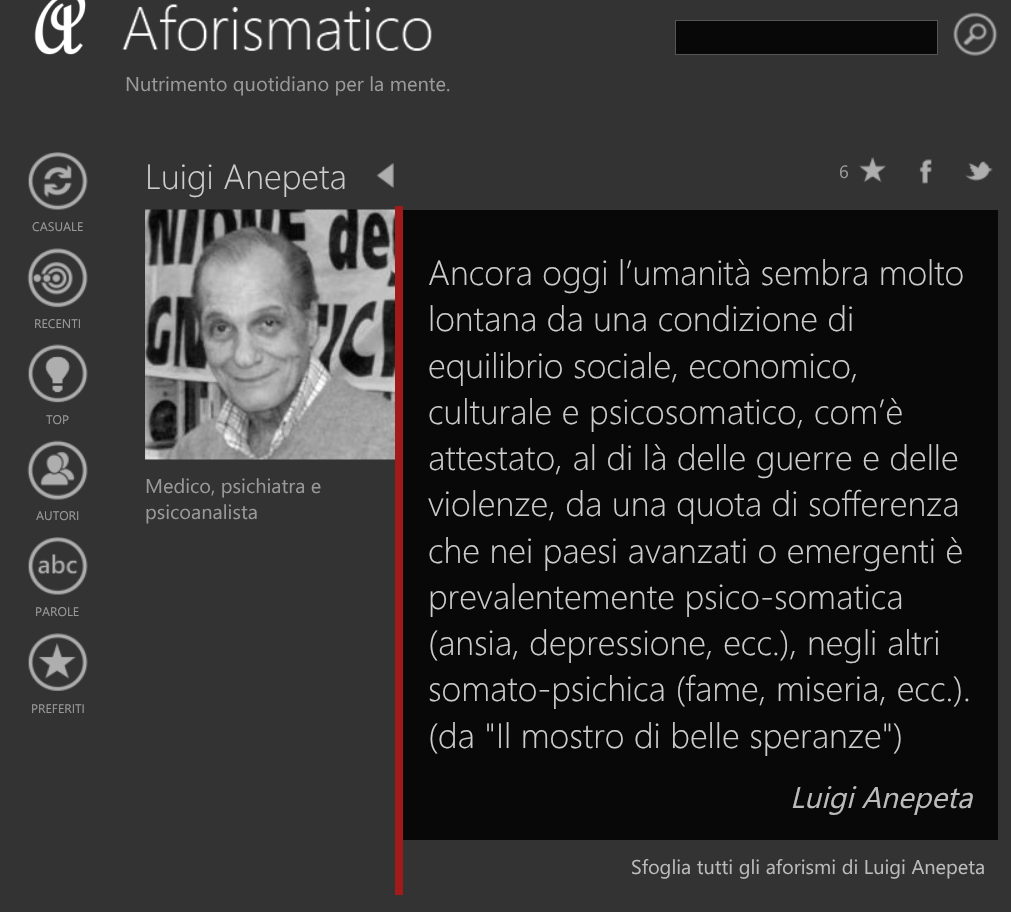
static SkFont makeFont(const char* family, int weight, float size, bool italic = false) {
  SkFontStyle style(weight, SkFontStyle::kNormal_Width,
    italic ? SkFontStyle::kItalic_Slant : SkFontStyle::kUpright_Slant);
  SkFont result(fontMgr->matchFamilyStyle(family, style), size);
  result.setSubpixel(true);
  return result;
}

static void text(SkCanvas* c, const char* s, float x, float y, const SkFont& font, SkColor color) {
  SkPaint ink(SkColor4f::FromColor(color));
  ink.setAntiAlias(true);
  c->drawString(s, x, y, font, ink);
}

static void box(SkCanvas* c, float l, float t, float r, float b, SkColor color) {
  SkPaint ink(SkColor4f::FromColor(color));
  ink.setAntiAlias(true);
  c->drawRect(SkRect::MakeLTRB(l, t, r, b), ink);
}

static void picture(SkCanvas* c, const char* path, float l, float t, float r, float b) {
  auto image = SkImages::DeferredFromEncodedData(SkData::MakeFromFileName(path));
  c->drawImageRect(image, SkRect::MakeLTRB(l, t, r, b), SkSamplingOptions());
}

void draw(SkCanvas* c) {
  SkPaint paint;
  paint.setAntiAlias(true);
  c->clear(0xff333333);
  paint.setColor(0xff080808);
  c->drawRect(SkRect::MakeLTRB(675.5f, 20.5f, 937.5f, 54.5f), paint);
  paint.setStyle(SkPaint::kStroke_Style);
  paint.setStrokeWidth(1);
  paint.setColor(0xff555555);
  c->drawRect(SkRect::MakeLTRB(675.5f, 20.5f, 937.5f, 54.5f), paint);
  picture(c, "img_01.png", 953, 12, 998, 56);
  picture(c, "img_02.png", 34, 0, 86, 55);
  picture(c, "img_03.png", 122, 4, 432, 51);
  SkFont face1 = makeFont("Segoe UI", 400, 20);
  text(c, "Nutrimento quotidiano per la mente.", 125, 91, face1, 0xff999999);
  picture(c, "img_04.png", 28, 152, 88, 210);
  SkFont face2 = makeFont("Segoe UI", 400, 12.5f);
  text(c, "CASUALE", 32, 231, face2, 0xff999999);
  picture(c, "img_05.png", 27, 248, 88, 308);
  text(c, "RECENTI", 34, 328, face2, 0xff999999);
  picture(c, "img_06.png", 28, 344, 88, 403);
  text(c, "TOP", 46, 424, face2, 0xff999999);
  picture(c, "img_07.png", 27, 440, 88, 500);
  text(c, "AUTORI", 36, 520, face2, 0xff999999);
  picture(c, "img_08.png", 28, 537, 88, 595);
  text(c, "PAROLE", 35, 616, face2, 0xff999999);
  picture(c, "img_09.png", 28, 633, 88, 691);
  text(c, "PREFERITI", 31, 713, face2, 0xff999999);
  SkFont face3 = makeFont("Segoe UI", 300, 35);
  text(c, "Luigi Anepeta", 145, 189, face3, 0xffcccccc);
  picture(c, "img_10.png", 376, 163, 394, 189);
  SkFont face4 = makeFont("Segoe UI", 400, 18);
  text(c, "6", 839, 178, face4, 0xff999999);
  picture(c, "img_11.png", 859, 157, 887, 183);
  picture(c, "img_12.png", 919, 159, 932, 184);
  picture(c, "img_13.png", 965, 161, 993, 181);
  box(c, 395, 206, 403, 895, 0xffa31a1a);
  picture(c, "img_14.png", 145, 209, 395, 460);
  text(c, "Medico, psichiatra e", 145, 493, face1, 0xff999999);
  text(c, "psicoanalista", 145, 519, face1, 0xff999999);
  box(c, 403, 210, 998, 840, 0xff080808);
  text(c, "Ancora oggi l’umanità sembra molto", 428, 285, face3, 0xffcccccc);
  text(c, "lontana da una condizione di", 428, 331, face3, 0xffcccccc);
  text(c, "equilibrio sociale, economico,", 428, 378, face3, 0xffcccccc);
  text(c, "culturale e psicosomatico, com’è", 428, 424, face3, 0xffcccccc);
  text(c, "attestato, al di là delle guerre e delle", 428, 470, face3, 0xffcccccc);
  text(c, "violenze, da una quota di sofferenza", 428, 516, face3, 0xffcccccc);
  text(c, "che nei paesi avanzati o emergenti è", 428, 563, face3, 0xffcccccc);
  text(c, "prevalentemente psico-somatica", 428, 609, face3, 0xffcccccc);
  text(c, "(ansia, depressione, ecc.), negli altri", 428, 655, face3, 0xffcccccc);
  text(c, "somato-psichica (fame, miseria, ecc.).", 428, 701, face3, 0xffcccccc);
  text(c, "(da \"Il mostro di belle speranze\")", 428, 748, face3, 0xffcccccc);
  SkFont face5 = makeFont("Segoe UI", 400, 30, true);
  text(c, "Luigi Anepeta", 790, 808, face5, 0xffbbbbbb);
  text(c, "Sfoglia tutti gli aforismi di Luigi Anepeta", 631, 874, face1, 0xffbbbbbb);
}
